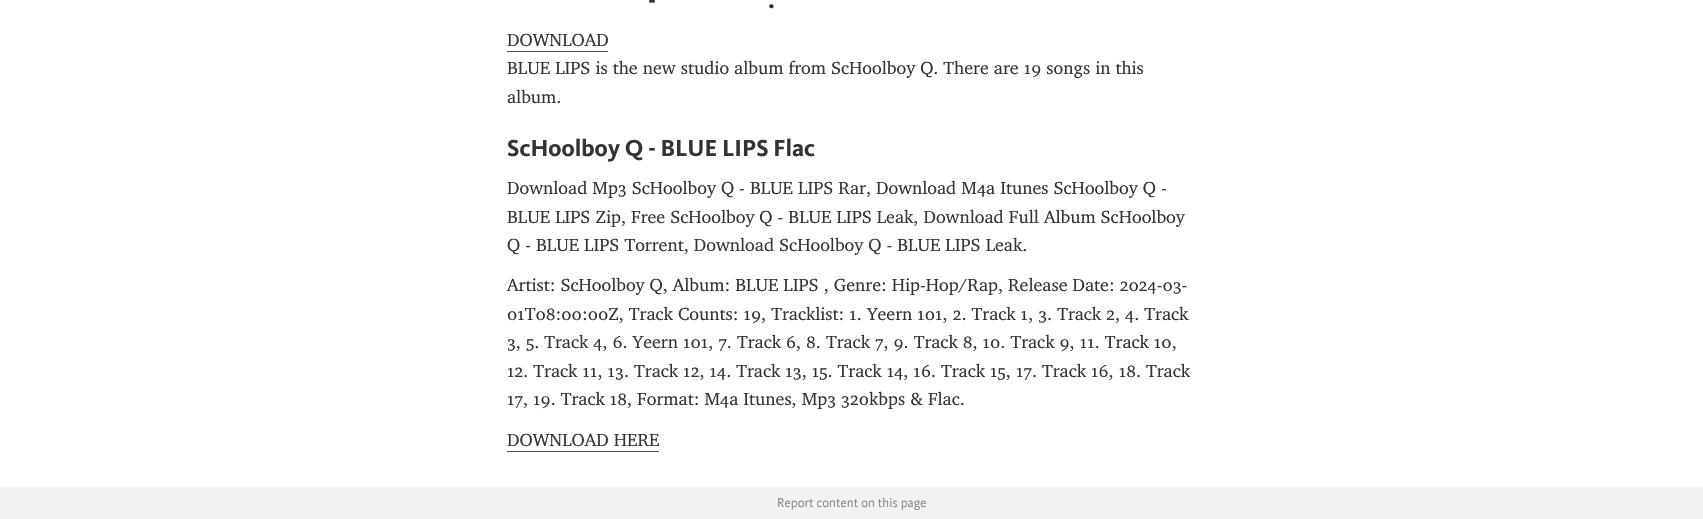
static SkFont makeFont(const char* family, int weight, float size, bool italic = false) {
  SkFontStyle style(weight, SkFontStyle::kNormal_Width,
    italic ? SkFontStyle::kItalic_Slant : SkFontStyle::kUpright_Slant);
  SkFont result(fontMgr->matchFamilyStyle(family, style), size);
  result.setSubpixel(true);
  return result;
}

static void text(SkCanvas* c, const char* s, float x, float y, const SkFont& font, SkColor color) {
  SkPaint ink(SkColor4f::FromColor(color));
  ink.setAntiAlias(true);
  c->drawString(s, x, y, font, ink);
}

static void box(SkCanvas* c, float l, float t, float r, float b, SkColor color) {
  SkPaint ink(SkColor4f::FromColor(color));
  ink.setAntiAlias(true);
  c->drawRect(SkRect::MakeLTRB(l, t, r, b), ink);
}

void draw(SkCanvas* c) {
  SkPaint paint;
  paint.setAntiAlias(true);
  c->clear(0xffffffff);
  SkFont face1 = makeFont("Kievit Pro", 700, 24);
  text(c, "-", 648, 8, face1, 0xff333333);
  text(c, ".", 768, 8, face1, 0xff333333);
  SkFont face2 = makeFont("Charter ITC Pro", 400, 18);
  text(c, "DOWNLOAD", 507, 46, face2, 0xff333333);
  box(c, 507, 51, 608, 52, 0xff4d4d4d);
  text(c, "BLUE LIPS is the new studio album from ScHoolboy Q. There are 19 songs in this", 507, 74, face2, 0xff333333);
  text(c, "album.", 507, 103, face2, 0xff333333);
  text(c, "ScHoolboy Q - BLUE LIPS Flac", 507, 156, face1, 0xff333333);
  text(c, "Download Mp3 ScHoolboy Q - BLUE LIPS Rar, Download M4a Itunes ScHoolboy Q -", 507, 194, face2, 0xff333333);
  text(c, "BLUE LIPS Zip, Free ScHoolboy Q - BLUE LIPS Leak, Download Full Album ScHoolboy", 507, 223, face2, 0xff333333);
  text(c, "Q - BLUE LIPS Torrent, Download ScHoolboy Q - BLUE LIPS Leak.", 507, 251, face2, 0xff333333);
  text(c, "Artist: ScHoolboy Q, Album: BLUE LIPS , Genre: Hip-Hop/Rap, Release Date: 2024-03-", 507, 291, face2, 0xff333333);
  text(c, "01T08:00:00Z, Track Counts: 19, Tracklist: 1. Yeern 101, 2. Track 1, 3. Track 2, 4. Track", 507, 320, face2, 0xff333333);
  text(c, "3, 5. Track 4, 6. Yeern 101, 7. Track 6, 8. Track 7, 9. Track 8, 10. Track 9, 11. Track 10,", 507, 348, face2, 0xff333333);
  text(c, "12. Track 11, 13. Track 12, 14. Track 13, 15. Track 14, 16. Track 15, 17. Track 16, 18. Track", 507, 377, face2, 0xff333333);
  text(c, "17, 19. Track 18, Format: M4a Itunes, Mp3 320kbps & Flac.", 507, 405, face2, 0xff333333);
  text(c, "DOWNLOAD HERE", 507, 446, face2, 0xff333333);
  box(c, 507, 451, 659, 452, 0xff4d4d4d);
  box(c, 0, 487, 1703, 519, 0xfff2f2f2);
  SkFont face3 = makeFont("Kievit Pro", 400, 13);
  text(c, "Report content on this page", 777, 507, face3, 0xff888888);
}
